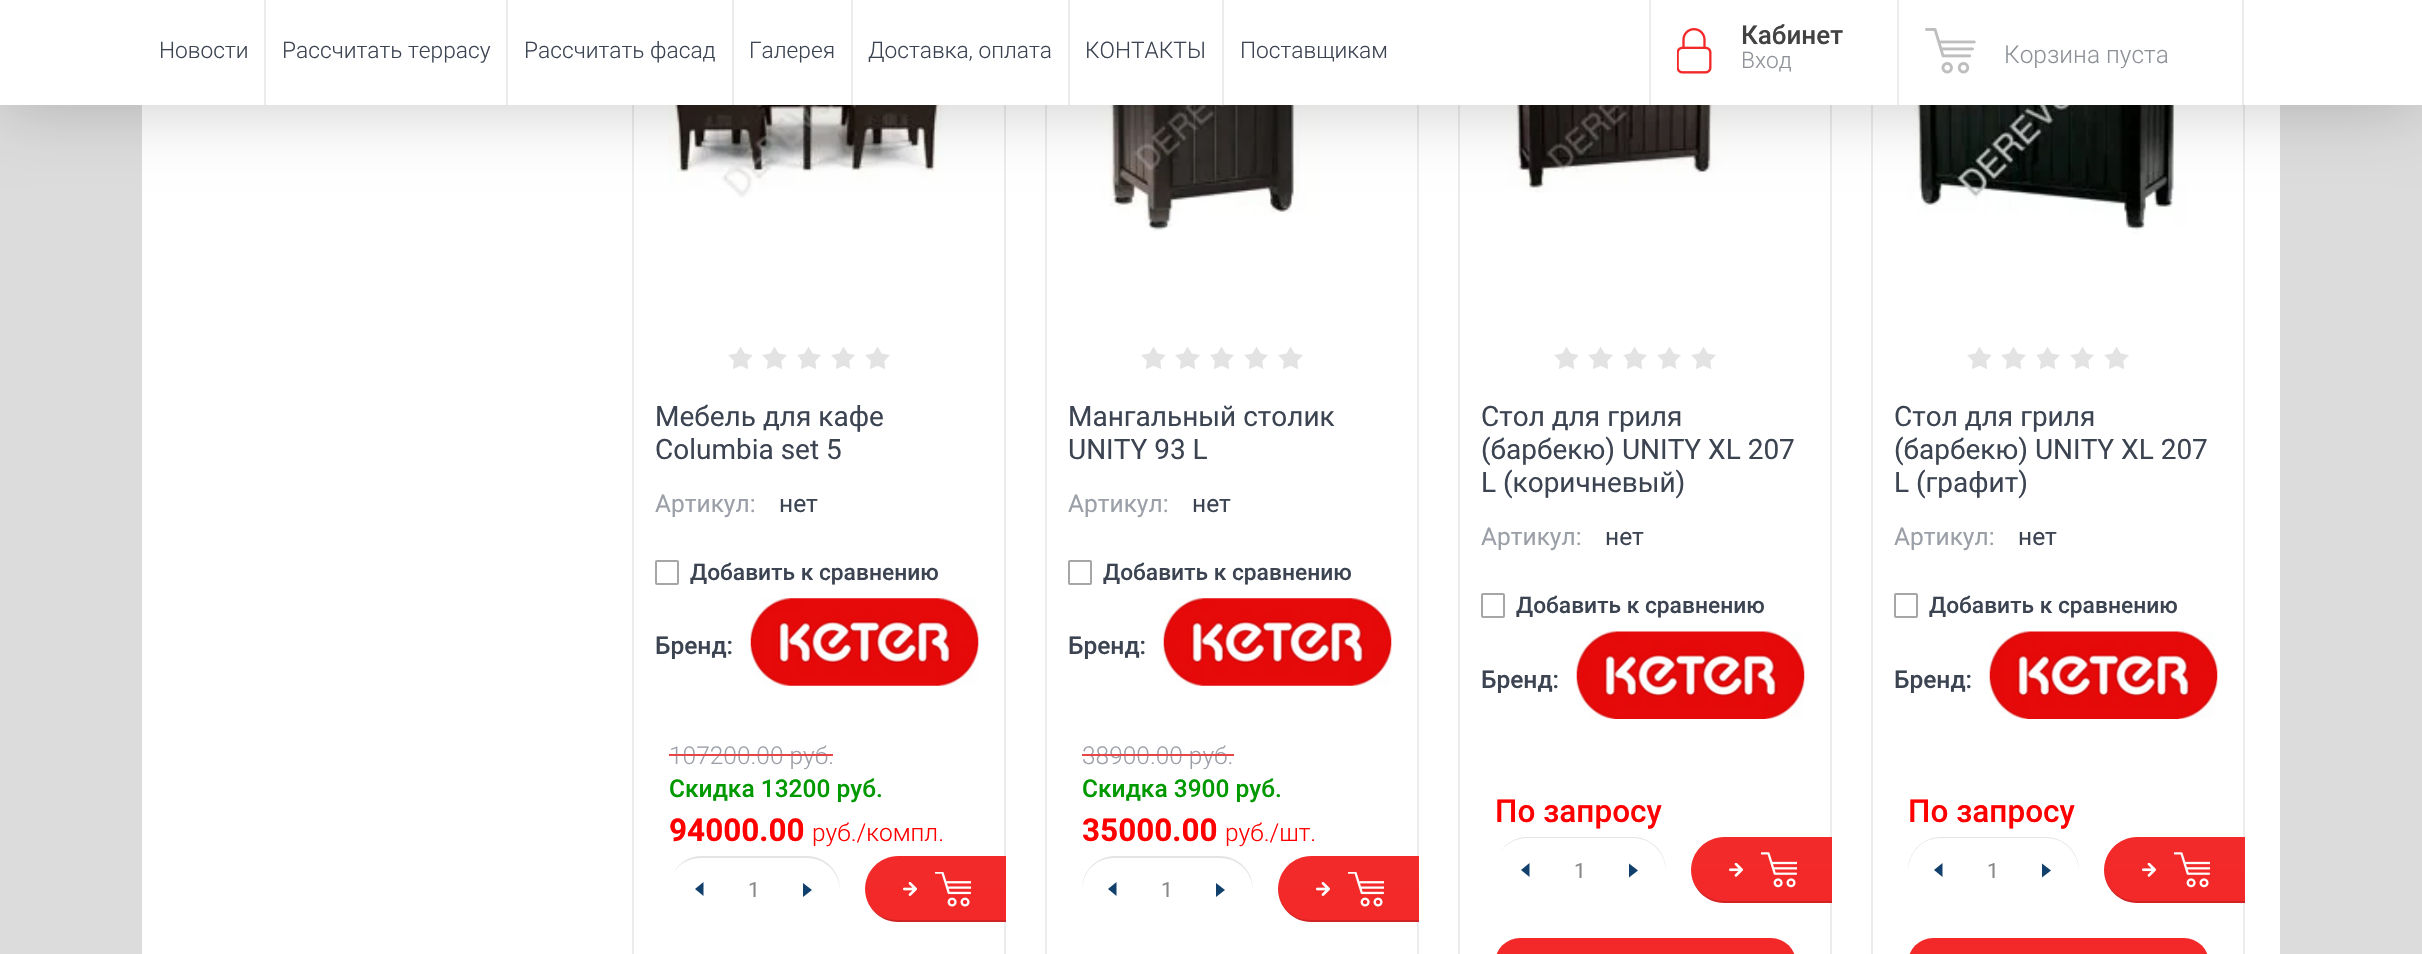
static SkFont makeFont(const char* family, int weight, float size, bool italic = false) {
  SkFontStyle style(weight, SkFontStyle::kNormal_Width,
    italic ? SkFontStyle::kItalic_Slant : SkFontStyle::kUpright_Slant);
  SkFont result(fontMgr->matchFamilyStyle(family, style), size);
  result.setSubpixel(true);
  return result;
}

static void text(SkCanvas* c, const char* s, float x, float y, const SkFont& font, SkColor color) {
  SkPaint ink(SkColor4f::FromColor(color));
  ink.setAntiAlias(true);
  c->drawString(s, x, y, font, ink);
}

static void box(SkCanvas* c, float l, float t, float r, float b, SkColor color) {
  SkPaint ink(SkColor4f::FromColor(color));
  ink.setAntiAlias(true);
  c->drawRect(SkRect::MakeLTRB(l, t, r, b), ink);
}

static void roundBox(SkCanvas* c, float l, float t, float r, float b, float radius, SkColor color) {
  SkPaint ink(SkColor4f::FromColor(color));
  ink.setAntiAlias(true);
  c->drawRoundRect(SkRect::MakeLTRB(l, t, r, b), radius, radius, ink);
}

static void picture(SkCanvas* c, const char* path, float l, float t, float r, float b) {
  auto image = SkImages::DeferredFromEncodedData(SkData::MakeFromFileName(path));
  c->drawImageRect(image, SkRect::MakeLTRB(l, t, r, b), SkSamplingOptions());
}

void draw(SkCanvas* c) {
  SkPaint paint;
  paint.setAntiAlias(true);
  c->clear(0xffdcdcdc);
  box(c, 142, 105, 2280, 954, 0xffffffff);
  paint.setStyle(SkPaint::kStroke_Style);
  paint.setStrokeWidth(2);
  paint.setColor(0xffececec);
  c->drawRect(SkRect::MakeLTRB(633, -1, 1005, 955), paint);
  picture(c, "img_03.png", 668, 105, 945, 198);
  c->drawRect(SkRect::MakeLTRB(1046, -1, 1418, 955), paint);
  picture(c, "img_08.png", 1088, 105, 1327, 232);
  c->drawRect(SkRect::MakeLTRB(1459, -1, 1831, 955), paint);
  picture(c, "img_10.png", 1501, 105, 1740, 193);
  c->drawRect(SkRect::MakeLTRB(1872, -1, 2244, 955), paint);
  picture(c, "img_14.png", 1900, 105, 2197, 234);
  paint.setStyle(SkPaint::kFill_Style);
  paint.setColor(0x33000000);
  paint.setMaskFilter(SkMaskFilter::MakeBlur(kNormal_SkBlurStyle, 35));
  c->drawRect(SkRect::MakeLTRB(0, 2, 2422, 107), paint);
  paint.setMaskFilter(nullptr);
  box(c, 0, 0, 2422, 105, 0xffffffff);
  SkFont face1 = makeFont("Roboto", 300, 22.75f);
  text(c, "Новости", 159, 58, face1, 0xff3c4452);
  box(c, 264, 0, 266, 105, 0xffececec);
  text(c, "Рассчитать террасу", 282, 58, face1, 0xff3c4452);
  box(c, 506, 0, 508, 105, 0xffececec);
  text(c, "Рассчитать фасад", 524, 58, face1, 0xff3c4452);
  box(c, 732, 0, 734, 105, 0xffececec);
  text(c, "Галерея", 749, 58, face1, 0xff3c4452);
  box(c, 851, 0, 853, 105, 0xffececec);
  text(c, "Доставка, оплата", 868, 58, face1, 0xff3c4452);
  box(c, 1068, 0, 1070, 105, 0xffececec);
  text(c, "КОНТАКТЫ", 1085, 58, face1, 0xff3c4452);
  box(c, 1222, 0, 1224, 105, 0xffececec);
  text(c, "Поставщикам", 1240, 58, face1, 0xff3c4452);
  box(c, 1649, 0, 1651, 105, 0xffececec);
  box(c, 1897, 0, 1899, 105, 0xffececec);
  picture(c, "img_01.png", 1677, 28, 1712, 74);
  SkFont face2 = makeFont("Roboto", 500, 26);
  text(c, "Кабинет", 1741, 44, face2, 0xff424242);
  text(c, "Вход", 1741, 68, face1, 0xff8e9298);
  box(c, 2242, 0, 2244, 105, 0xffececec);
  picture(c, "img_02.png", 1925, 28, 1976, 74);
  SkFont face3 = makeFont("Roboto", 300, 24.5f);
  text(c, "Корзина пуста", 2004, 63, face3, 0xff8e9298);
  picture(c, "img_04.png", 728, 347, 890, 369);
  SkFont face4 = makeFont("Roboto", 400, 28);
  text(c, "Мебель для кафе", 655, 426, face4, 0xff3c4452);
  text(c, "Columbia set 5", 655, 459, face4, 0xff3c4452);
  SkFont face5 = makeFont("Roboto", 400, 24.5f);
  text(c, "Артикул:", 655, 512, face5, 0xff9b9fa7);
  text(c, "нет", 779, 512, face5, 0xff3c4452);
  paint.setStyle(SkPaint::kStroke_Style);
  paint.setColor(0xffa6a6a6);
  c->drawRoundRect(SkRect::MakeLTRB(656, 561, 678, 584), 1, 1, paint);
  SkFont face6 = makeFont("Roboto", 500, 22.75f);
  text(c, "Добавить к сравнению", 690, 580, face6, 0xff3c4452);
  SkFont face7 = makeFont("Roboto", 500, 24.5f);
  text(c, "Бренд:", 655, 654, face7, 0xff3c4452);
  picture(c, "img_05.png", 750, 598, 979, 686);
  text(c, "107200.00 руб.", 669, 764, face3, 0xff9b9fa7);
  box(c, 669, 754, 833, 756, 0xffe84646);
  text(c, "Скидка 13200 руб.", 669, 797, face7, 0xff009900);
  SkFont face8 = makeFont("Roboto", 700, 31.5f);
  text(c, "94000.00", 669, 841, face8, 0xffff0000);
  text(c, "руб./компл.", 812, 841, face3, 0xffff0000);
  paint.setStyle(SkPaint::kFill_Style);
  paint.setColor(0xffe3e4e5);
  c->drawPath(SkPathBuilder().moveTo(702, 858).lineTo(807, 858).cubicTo(825, 858, 839, 872, 840, 890).lineTo(840, 889).cubicTo(840, 871, 825, 856, 807, 856).lineTo(702, 856).cubicTo(689, 856, 678, 863, 673, 874).cubicTo(678, 864, 689, 858, 702, 858).close().detach(), paint);
  paint.setColor(0xff11406c);
  c->drawPath(SkPathBuilder().moveTo(703.5f, 882).lineTo(703.5f, 896).lineTo(695, 889).close().detach(), paint);
  SkFont face9 = makeFont("Roboto", 400, 21);
  text(c, "1", 748, 897, face9, 0xff888888);
  c->drawPath(SkPathBuilder().moveTo(803, 897).lineTo(803, 883).lineTo(812, 890).close().detach(), paint);
  {
    const SkColor colors[] = {0xfff32929, 0xfff32a2a};
    const float stops[] = {0, 1};
    const SkPoint ends[] = {{935, 922}, {935, 856}};
    paint.setShader(SkGradientShader::MakeLinear(ends, colors, stops, 2, SkTileMode::kClamp));
    paint.setAlpha(255);
  }
  c->drawPath(SkPathBuilder().moveTo(898, 856).lineTo(1006, 856).lineTo(1006, 922).lineTo(898, 922).cubicTo(880, 922, 865, 907, 865, 889).cubicTo(865, 871, 880, 856, 898, 856).close().detach(), paint);
  paint.setShader(nullptr);
  paint.setColor(0x24000000);
  c->drawPath(SkPathBuilder().moveTo(869, 904).cubicTo(874, 915, 885, 922, 898, 922).lineTo(1006, 922).lineTo(1006, 920).lineTo(898, 920).cubicTo(885, 920, 874, 914, 869, 904).close().detach(), paint);
  picture(c, "img_06.png", 903, 882, 917, 896);
  picture(c, "img_07.png", 935, 872, 971, 907);
  picture(c, "img_04.png", 1141, 347, 1303, 369);
  text(c, "Мангальный столик", 1068, 426, face4, 0xff3c4452);
  text(c, "UNITY 93 L", 1068, 459, face4, 0xff3c4452);
  text(c, "Артикул:", 1068, 512, face5, 0xff9b9fa7);
  text(c, "нет", 1192, 512, face5, 0xff3c4452);
  paint.setStyle(SkPaint::kStroke_Style);
  paint.setColor(0xffa6a6a6);
  c->drawRoundRect(SkRect::MakeLTRB(1069, 561, 1091, 584), 1, 1, paint);
  text(c, "Добавить к сравнению", 1103, 580, face6, 0xff3c4452);
  text(c, "Бренд:", 1068, 654, face7, 0xff3c4452);
  picture(c, "img_09.png", 1163, 598, 1392, 686);
  text(c, "38900.00 руб.", 1082, 764, face3, 0xff9b9fa7);
  box(c, 1082, 754, 1234, 756, 0xffe84646);
  text(c, "Скидка 3900 руб.", 1082, 797, face7, 0xff009900);
  text(c, "35000.00", 1082, 841, face8, 0xffff0000);
  text(c, "руб./шт.", 1225, 841, face3, 0xffff0000);
  paint.setStyle(SkPaint::kFill_Style);
  paint.setColor(0xffe3e4e5);
  c->drawPath(SkPathBuilder().moveTo(1115, 858).lineTo(1220, 858).cubicTo(1238, 858, 1252, 872, 1253, 890).lineTo(1253, 889).cubicTo(1253, 871, 1238, 856, 1220, 856).lineTo(1115, 856).cubicTo(1097, 856, 1082, 871, 1082, 889).lineTo(1082, 890).cubicTo(1083, 871, 1096, 858, 1115, 858).close().detach(), paint);
  paint.setColor(0xff11406c);
  c->drawPath(SkPathBuilder().moveTo(1116.5f, 882).lineTo(1116.5f, 896).lineTo(1108, 889).close().detach(), paint);
  text(c, "1", 1161, 897, face9, 0xff888888);
  c->drawPath(SkPathBuilder().moveTo(1216, 897).lineTo(1216, 883).lineTo(1225, 890).close().detach(), paint);
  {
    const SkColor colors[] = {0xfff32929, 0xfff32a2a};
    const float stops[] = {0, 1};
    const SkPoint ends[] = {{1348, 922}, {1348, 856}};
    paint.setShader(SkGradientShader::MakeLinear(ends, colors, stops, 2, SkTileMode::kClamp));
    paint.setAlpha(255);
  }
  c->drawPath(SkPathBuilder().moveTo(1311, 856).lineTo(1419, 856).lineTo(1419, 922).lineTo(1311, 922).cubicTo(1293, 922, 1278, 907, 1278, 889).cubicTo(1278, 871, 1293, 856, 1311, 856).close().detach(), paint);
  paint.setShader(nullptr);
  paint.setColor(0x24000000);
  c->drawPath(SkPathBuilder().moveTo(1278, 888).lineTo(1278, 889).cubicTo(1278, 907, 1293, 922, 1311, 922).lineTo(1419, 922).lineTo(1419, 920).lineTo(1311, 920).cubicTo(1292, 920, 1279, 907, 1278, 888).close().detach(), paint);
  picture(c, "img_06.png", 1316, 882, 1330, 896);
  picture(c, "img_07.png", 1348, 872, 1384, 907);
  picture(c, "img_04.png", 1554, 347, 1716, 369);
  text(c, "Стол для гриля", 1481, 426, face4, 0xff3c4452);
  text(c, "(барбекю) UNITY XL 207", 1481, 459, face4, 0xff3c4452);
  text(c, "L (коричневый)", 1481, 492, face4, 0xff3c4452);
  text(c, "Артикул:", 1481, 545, face5, 0xff9b9fa7);
  text(c, "нет", 1605, 545, face5, 0xff3c4452);
  paint.setStyle(SkPaint::kStroke_Style);
  paint.setColor(0xffa6a6a6);
  c->drawRoundRect(SkRect::MakeLTRB(1482, 594, 1504, 617), 1, 1, paint);
  text(c, "Добавить к сравнению", 1516, 613, face6, 0xff3c4452);
  text(c, "Бренд:", 1481, 688, face7, 0xff3c4452);
  picture(c, "img_11.png", 1576, 631, 1805, 719);
  SkFont face10 = makeFont("Roboto", 500, 31.5f);
  text(c, "По запросу", 1495, 822, face10, 0xffff0000);
  paint.setStyle(SkPaint::kFill_Style);
  paint.setColor(0xffe3e4e5);
  c->drawPath(SkPathBuilder().moveTo(1528, 838).lineTo(1633, 838).cubicTo(1651, 838, 1665, 852, 1666, 871).lineTo(1666, 870).cubicTo(1666, 852, 1651, 837, 1633, 837).lineTo(1528, 837).cubicTo(1516, 837, 1506, 843, 1500, 852).cubicTo(1506, 844, 1516, 838, 1528, 838).close().detach(), paint);
  paint.setColor(0xff11406c);
  c->drawPath(SkPathBuilder().moveTo(1529.5f, 863).lineTo(1529.5f, 877).lineTo(1521, 870).close().detach(), paint);
  text(c, "1", 1574, 878, face9, 0xff888888);
  c->drawPath(SkPathBuilder().moveTo(1629, 877.5f).lineTo(1629, 863.5f).lineTo(1638, 870.5f).close().detach(), paint);
  {
    const SkColor colors[] = {0xfff32929, 0xfff32a2a};
    const float stops[] = {0, 1};
    const SkPoint ends[] = {{1761, 903}, {1761, 837}};
    paint.setShader(SkGradientShader::MakeLinear(ends, colors, stops, 2, SkTileMode::kClamp));
    paint.setAlpha(255);
  }
  c->drawPath(SkPathBuilder().moveTo(1724, 837).lineTo(1832, 837).lineTo(1832, 903).lineTo(1724, 903).cubicTo(1706, 903, 1691, 888, 1691, 870).cubicTo(1691, 852, 1706, 837, 1724, 837).close().detach(), paint);
  paint.setShader(nullptr);
  paint.setColor(0x24000000);
  c->drawPath(SkPathBuilder().moveTo(1693, 882).cubicTo(1698, 894, 1710, 903, 1724, 903).lineTo(1832, 903).lineTo(1832, 901).lineTo(1724, 901).cubicTo(1710, 901, 1699, 893, 1693, 882).close().detach(), paint);
  picture(c, "img_12.png", 1729, 863, 1743, 877);
  picture(c, "img_13.png", 1761, 852, 1797, 888);
  roundBox(c, 1495, 938, 1796, 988, 33.5f, 0xfff32929);
  picture(c, "img_04.png", 1967, 347, 2129, 369);
  text(c, "Стол для гриля", 1894, 426, face4, 0xff3c4452);
  text(c, "(барбекю) UNITY XL 207", 1894, 459, face4, 0xff3c4452);
  text(c, "L (графит)", 1894, 492, face4, 0xff3c4452);
  text(c, "Артикул:", 1894, 545, face5, 0xff9b9fa7);
  text(c, "нет", 2018, 545, face5, 0xff3c4452);
  paint.setStyle(SkPaint::kStroke_Style);
  paint.setColor(0xffa6a6a6);
  c->drawRoundRect(SkRect::MakeLTRB(1895, 594, 1917, 617), 1, 1, paint);
  text(c, "Добавить к сравнению", 1929, 613, face6, 0xff3c4452);
  text(c, "Бренд:", 1894, 688, face7, 0xff3c4452);
  picture(c, "img_11.png", 1989, 631, 2218, 719);
  text(c, "По запросу", 1908, 822, face10, 0xffff0000);
  paint.setStyle(SkPaint::kFill_Style);
  paint.setColor(0xffe3e4e5);
  c->drawPath(SkPathBuilder().moveTo(1941, 838).lineTo(2046, 838).cubicTo(2064, 838, 2078, 852, 2079, 871).lineTo(2079, 870).cubicTo(2079, 852, 2064, 837, 2046, 837).lineTo(1941, 837).cubicTo(1923, 837, 1908, 852, 1908, 870).lineTo(1908, 871).cubicTo(1909, 852, 1922, 838, 1941, 838).close().detach(), paint);
  paint.setColor(0xff11406c);
  c->drawPath(SkPathBuilder().moveTo(1942.5f, 863).lineTo(1942.5f, 877).lineTo(1934, 870).close().detach(), paint);
  text(c, "1", 1987, 878, face9, 0xff888888);
  c->drawPath(SkPathBuilder().moveTo(2042, 877.5f).lineTo(2042, 863.5f).lineTo(2051, 870.5f).close().detach(), paint);
  {
    const SkColor colors[] = {0xfff32929, 0xfff32a2a};
    const float stops[] = {0, 1};
    const SkPoint ends[] = {{2174, 903}, {2174, 837}};
    paint.setShader(SkGradientShader::MakeLinear(ends, colors, stops, 2, SkTileMode::kClamp));
    paint.setAlpha(255);
  }
  c->drawPath(SkPathBuilder().moveTo(2137, 837).lineTo(2245, 837).lineTo(2245, 903).lineTo(2137, 903).cubicTo(2119, 903, 2104, 888, 2104, 870).cubicTo(2104, 852, 2119, 837, 2137, 837).close().detach(), paint);
  paint.setShader(nullptr);
  paint.setColor(0x24000000);
  c->drawPath(SkPathBuilder().moveTo(2104, 869).lineTo(2104, 870).cubicTo(2104, 888, 2119, 903, 2137, 903).lineTo(2245, 903).lineTo(2245, 901).lineTo(2137, 901).cubicTo(2118, 901, 2105, 887, 2104, 869).close().detach(), paint);
  picture(c, "img_12.png", 2142, 863, 2156, 877);
  picture(c, "img_13.png", 2174, 852, 2210, 888);
  roundBox(c, 1908, 938, 2209, 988, 33.5f, 0xfff32929);
}
